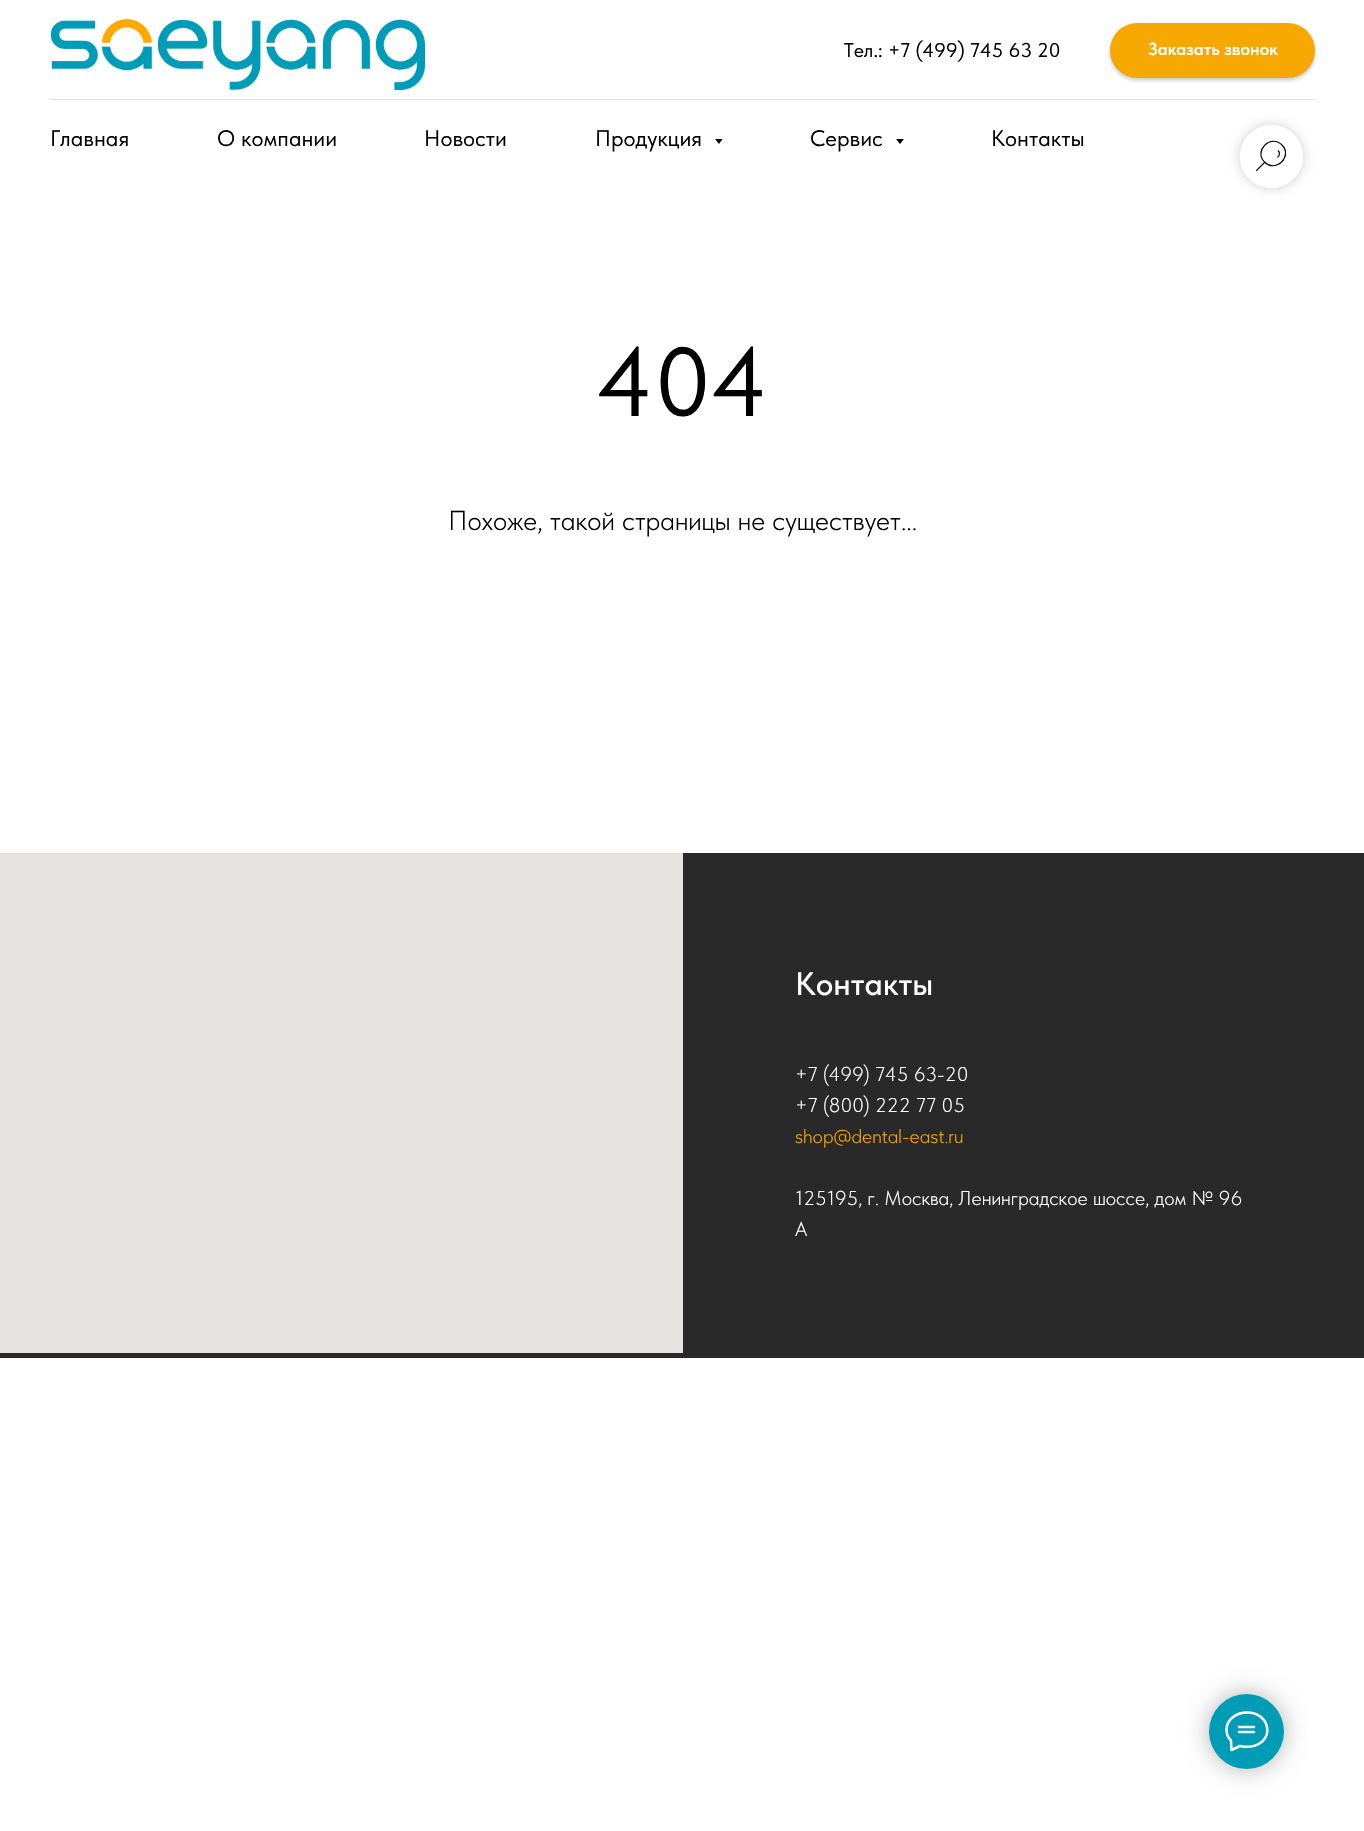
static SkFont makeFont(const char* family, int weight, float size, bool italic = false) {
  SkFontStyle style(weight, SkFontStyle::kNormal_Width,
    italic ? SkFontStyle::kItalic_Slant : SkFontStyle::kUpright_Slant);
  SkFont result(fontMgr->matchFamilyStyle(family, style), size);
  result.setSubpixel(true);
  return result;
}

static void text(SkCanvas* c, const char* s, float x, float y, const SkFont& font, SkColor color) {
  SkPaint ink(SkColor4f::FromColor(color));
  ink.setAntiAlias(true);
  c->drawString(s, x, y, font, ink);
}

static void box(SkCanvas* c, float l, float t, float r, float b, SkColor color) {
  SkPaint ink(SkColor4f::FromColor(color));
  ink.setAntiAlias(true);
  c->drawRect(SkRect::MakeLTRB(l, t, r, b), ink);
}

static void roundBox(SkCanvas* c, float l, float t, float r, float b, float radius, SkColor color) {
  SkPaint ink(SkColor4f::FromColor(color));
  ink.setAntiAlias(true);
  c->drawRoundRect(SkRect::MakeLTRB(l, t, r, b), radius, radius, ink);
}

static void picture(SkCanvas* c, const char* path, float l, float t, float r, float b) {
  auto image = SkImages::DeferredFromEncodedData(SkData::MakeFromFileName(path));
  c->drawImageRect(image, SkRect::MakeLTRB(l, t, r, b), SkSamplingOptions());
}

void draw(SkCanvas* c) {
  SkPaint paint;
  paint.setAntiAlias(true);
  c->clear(0xffffffff);
  picture(c, "img_01.png", 50, 19, 425, 90);
  SkFont face1 = makeFont("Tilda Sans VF", 400, 20);
  text(c, "Тел.: +7 (499) 745 63 20", 844, 57, face1, 0xff000000);
  paint.setColor(0x40000b30);
  paint.setMaskFilter(SkMaskFilter::MakeBlur(kNormal_SkBlurStyle, 2));
  c->drawRoundRect(SkRect::MakeLTRB(1110, 25, 1315, 80), 27.5f, 27.5f, paint);
  paint.setMaskFilter(nullptr);
  roundBox(c, 1110, 23, 1315, 78, 27.5f, 0xfff6a700);
  SkFont face2 = makeFont("Tilda Sans VF", 600, 17.5f);
  text(c, "Заказать звонок", 1148, 55, face2, 0xffffffff);
  box(c, 50, 99, 1315, 100, 0xffe2e2e2);
  SkFont face3 = makeFont("Tilda Sans VF", 400, 22.5f);
  text(c, "Главная", 50, 146, face3, 0xff000000);
  text(c, "О компании", 217, 146, face3, 0xff000000);
  text(c, "Новости", 424, 146, face3, 0xff000000);
  text(c, "Продукция", 595, 146, face3, 0xff000000);
  paint.setColor(0xff000000);
  c->drawPath(SkPathBuilder().moveTo(715, 139).lineTo(722.5f, 139).lineTo(719, 144).close().detach(), paint);
  text(c, "Сервис", 810, 146, face3, 0xff000000);
  c->drawPath(SkPathBuilder().moveTo(896, 139).lineTo(904, 139).lineTo(900, 144).close().detach(), paint);
  text(c, "Контакты", 991, 146, face3, 0xff000000);
  c->save();
  c->clipPath(SkPathBuilder(SkPathFillType::kEvenOdd).moveTo(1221, 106).lineTo(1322, 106).lineTo(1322, 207).lineTo(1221, 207).close().moveTo(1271.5f, 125).cubicTo(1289, 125, 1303, 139, 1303, 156.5f).cubicTo(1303, 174, 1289, 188, 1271.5f, 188).cubicTo(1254, 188, 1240, 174, 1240, 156.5f).cubicTo(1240, 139, 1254, 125, 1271.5f, 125).close().detach(), true);
  paint.setColor(0x33000000);
  paint.setMaskFilter(SkMaskFilter::MakeBlur(kNormal_SkBlurStyle, 6));
  c->drawRoundRect(SkRect::MakeLTRB(1240, 125, 1303, 188), 31.5f, 31.5f, paint);
  paint.setMaskFilter(nullptr);
  c->restore();
  paint.setColor(0xccffffff);
  c->drawCircle(1271.5f, 156.5f, 31.5f, paint);
  paint.setStyle(SkPaint::kStroke_Style);
  paint.setStrokeWidth(1.2f);
  paint.setStrokeCap(SkPaint::kSquare_Cap);
  paint.setColor(0xff000000);
  c->drawPath(SkPathBuilder().moveTo(1264.5f, 162.5f).lineTo(1256.5f, 170.5f).detach(), paint);
  paint.setStrokeCap(SkPaint::kButt_Cap);
  c->drawPath(SkPathBuilder().moveTo(1282, 145).cubicTo(1293, 156, 1276, 173.5f, 1264.5f, 162).cubicTo(1253.5f, 151, 1270.5f, 133.5f, 1282, 145).close().moveTo(1278, 150.5f).cubicTo(1280, 152.5f, 1280, 155.5f, 1277.5f, 157.5f).detach(), paint);
  SkFont face4 = makeFont("Tilda Sans VF", 400, 98);
  text(c, "404", 597, 416, face4, 0xff000000);
  SkFont face5 = makeFont("Tilda Sans VF", 300, 27.5f);
  text(c, "Похоже, такой страницы не существует...", 448, 530, face5, 0xff000000);
  box(c, 0, 853, 1364, 1358, 0xff292929);
  box(c, 0, 853, 683, 1353, 0xffe5e3df);
  SkFont face6 = makeFont("Tilda Sans VF", 500, 32.5f);
  text(c, "Контакты", 795, 995, face6, 0xffffffff);
  SkFont face7 = makeFont("Tilda Sans VF", 300, 20);
  text(c, "+7 (499) 745 63-20", 795, 1081, face7, 0xffffffff);
  text(c, "+7 (800) 222 77 05", 795, 1112, face7, 0xffffffff);
  text(c, "shop@dental-east.ru", 795, 1143, face7, 0xfff6a700);
  text(c, "125195, г. Москва, Ленинградское шоссе, дом № 96", 795, 1205, face7, 0xffffffff);
  text(c, "А", 795, 1236, face7, 0xffffffff);
  paint.setStyle(SkPaint::kFill_Style);
  paint.setColor(0x4d000000);
  paint.setMaskFilter(SkMaskFilter::MakeBlur(kNormal_SkBlurStyle, 12.5f));
  c->drawRoundRect(SkRect::MakeLTRB(1209, 1694, 1284, 1769), 37.5f, 37.5f, paint);
  paint.setMaskFilter(nullptr);
  paint.setColor(0xff009bb5);
  c->drawCircle(1246.5f, 1731.5f, 37.5f, paint);
  paint.setStyle(SkPaint::kStroke_Style);
  paint.setStrokeWidth(2.5f);
  paint.setStrokeCap(SkPaint::kRound_Cap);
  paint.setStrokeJoin(SkPaint::kRound_Join);
  paint.setColor(0xffffffff);
  c->drawPath(SkPathBuilder().moveTo(1239, 1727).lineTo(1254, 1727).moveTo(1239, 1732).lineTo(1254, 1732).moveTo(1231, 1740.5f).cubicTo(1224.5f, 1734, 1225, 1723.5f, 1232.5f, 1717.5f).cubicTo(1236.5f, 1714, 1241.5f, 1712.5f, 1247, 1712.5f).cubicTo(1271, 1712.5f, 1275.5f, 1742.5f, 1251, 1746.5f).cubicTo(1247, 1747.5f, 1244, 1746.5f, 1240, 1746).lineTo(1231.5f, 1750).close().detach(), paint);
}
